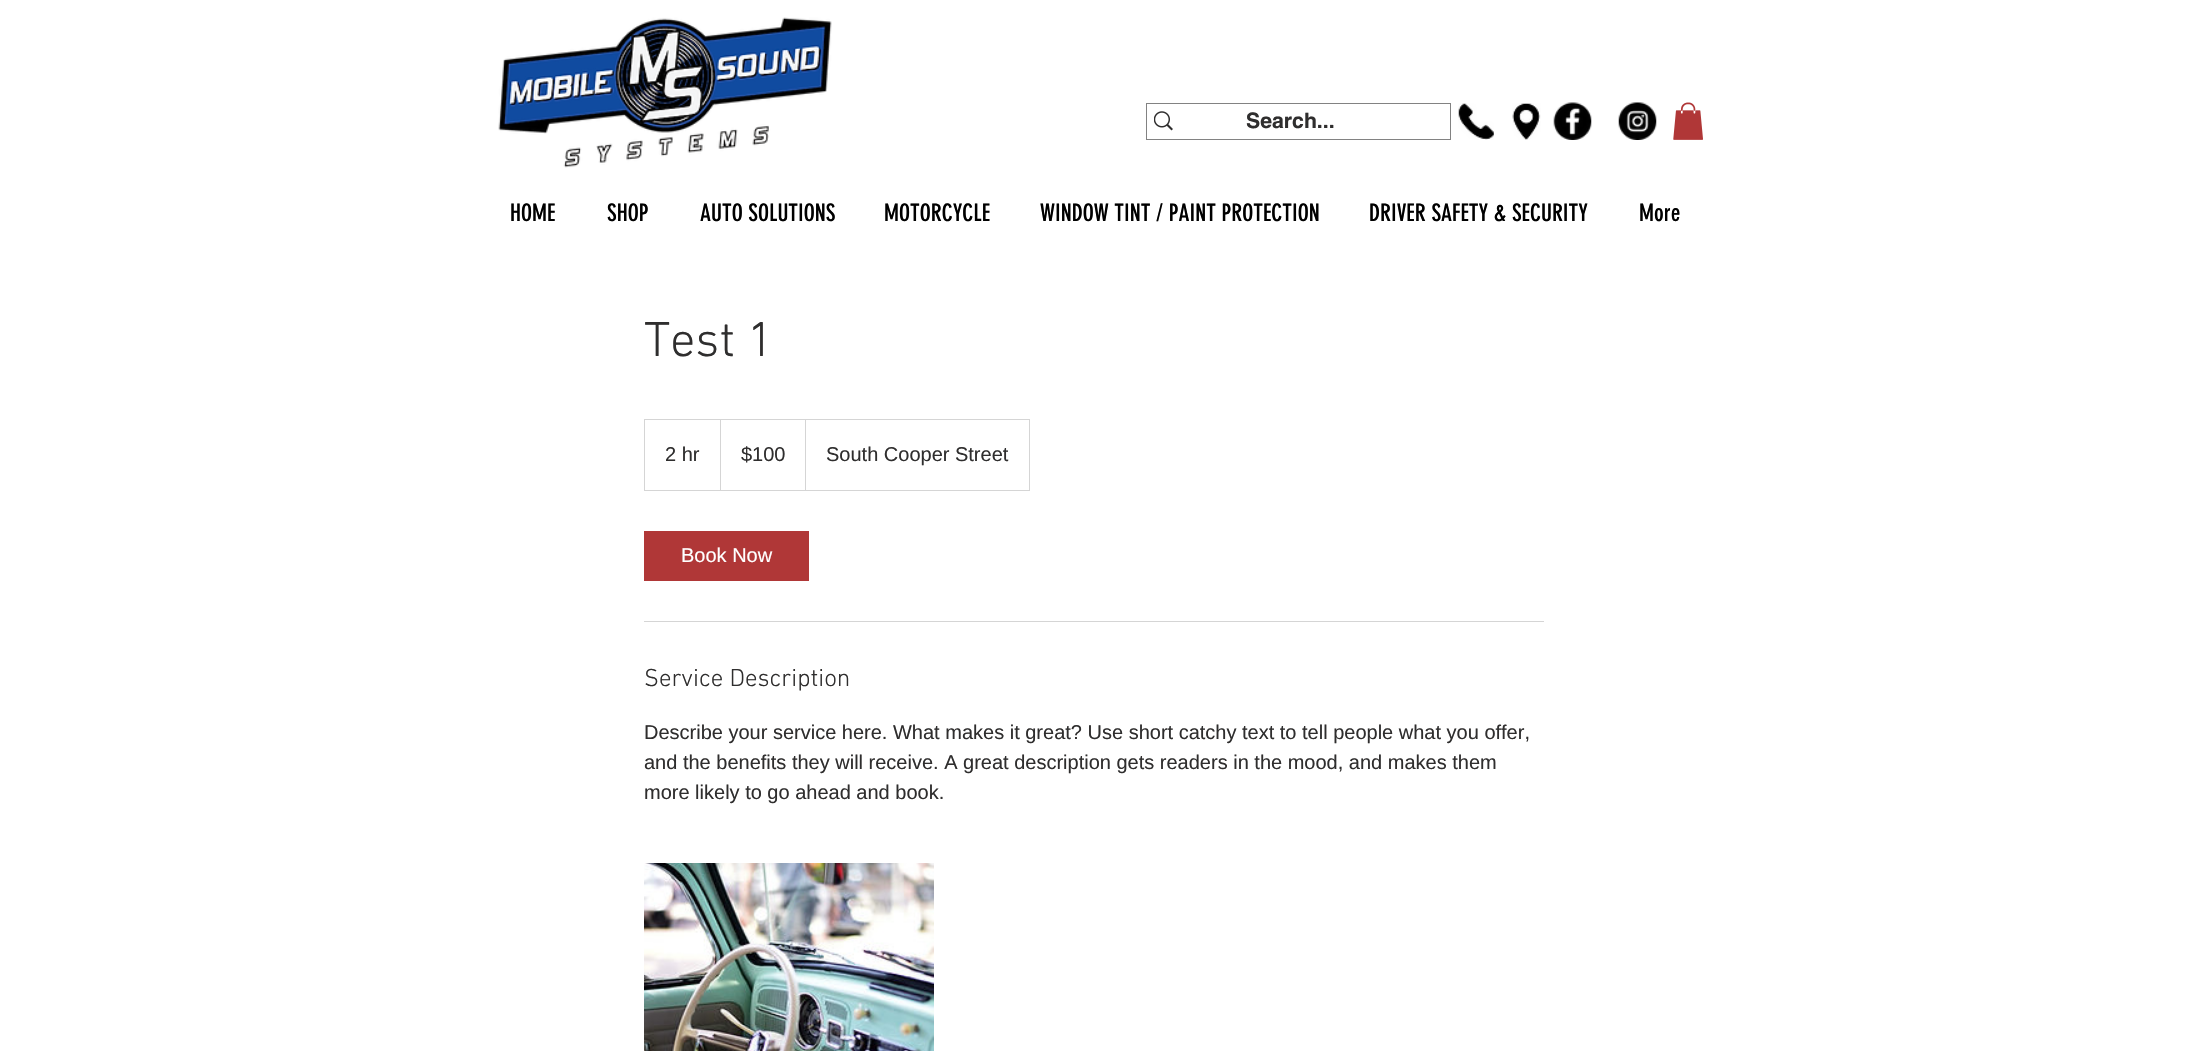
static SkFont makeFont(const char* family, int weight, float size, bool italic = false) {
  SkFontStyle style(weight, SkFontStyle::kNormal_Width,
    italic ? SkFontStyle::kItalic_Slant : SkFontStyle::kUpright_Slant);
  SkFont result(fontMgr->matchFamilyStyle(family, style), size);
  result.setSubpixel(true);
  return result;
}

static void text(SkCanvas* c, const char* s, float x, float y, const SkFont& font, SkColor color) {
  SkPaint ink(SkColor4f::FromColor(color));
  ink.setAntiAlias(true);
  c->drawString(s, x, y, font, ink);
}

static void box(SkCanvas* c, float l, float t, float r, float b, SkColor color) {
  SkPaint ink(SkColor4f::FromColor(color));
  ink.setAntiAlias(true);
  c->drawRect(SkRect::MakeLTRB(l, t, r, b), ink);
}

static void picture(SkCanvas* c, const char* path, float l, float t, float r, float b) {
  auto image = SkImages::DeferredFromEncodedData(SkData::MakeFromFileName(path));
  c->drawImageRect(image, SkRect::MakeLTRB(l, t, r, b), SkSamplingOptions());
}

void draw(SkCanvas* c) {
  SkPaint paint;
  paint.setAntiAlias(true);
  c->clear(0xffffffff);
  picture(c, "img_01.png", 498, 17, 832, 168);
  paint.setStyle(SkPaint::kStroke_Style);
  paint.setStrokeWidth(1);
  paint.setColor(0xff828282);
  c->drawRect(SkRect::MakeLTRB(1146.5f, 103.5f, 1450.5f, 139.5f), paint);
  picture(c, "img_02.png", 1154, 111, 1173, 131);
  SkFont face1 = makeFont("helvetica", 700, 21.25f);
  text(c, "Search...", 1246, 128, face1, 0xff2f2e2e);
  picture(c, "img_03.png", 1458, 103, 1494, 140);
  picture(c, "img_04.png", 1512, 103, 1541, 140);
  picture(c, "img_05.png", 1553, 102, 1592, 140);
  picture(c, "img_06.png", 1618, 102, 1657, 140);
  picture(c, "img_07.png", 1673, 102, 1703, 140);
  SkFont face2 = makeFont("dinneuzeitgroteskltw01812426", 400, 23.75f);
  text(c, "HOME", 510, 221, face2, 0xff000000);
  text(c, "SHOP", 607, 221, face2, 0xff000000);
  text(c, "AUTO SOLUTIONS", 700, 221, face2, 0xff000000);
  text(c, "MOTORCYCLE", 884, 221, face2, 0xff000000);
  text(c, "WINDOW TINT / PAINT PROTECTION", 1040, 221, face2, 0xff000000);
  text(c, "DRIVER SAFETY & SECURITY", 1369, 221, face2, 0xff000000);
  text(c, "More", 1639, 221, face2, 0xff000000);
  SkFont face3 = makeFont("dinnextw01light", 300, 50);
  text(c, "Test 1", 644, 356, face3, 0xff2f2e2e);
  paint.setColor(0xffd5d5d5);
  c->drawRect(SkRect::MakeLTRB(644.5f, 419.5f, 1029.5f, 490.5f), paint);
  SkFont face4 = makeFont("Liberation Sans", 400, 20);
  text(c, "2 hr", 665, 461, face4, 0xff2f2e2e);
  paint.setStyle(SkPaint::kFill_Style);
  c->drawPath(SkPathBuilder().moveTo(720, 490).lineTo(720, 419).lineTo(721, 420).lineTo(721, 490).close().detach(), paint);
  text(c, "$100", 741, 461, face4, 0xff2f2e2e);
  c->drawPath(SkPathBuilder().moveTo(805, 490).lineTo(805, 419).lineTo(806, 420).lineTo(806, 490).close().detach(), paint);
  text(c, "South Cooper Street", 826, 461, face4, 0xff2f2e2e);
  box(c, 644, 531, 809, 581, 0xffb03737);
  text(c, "Book Now", 681, 562, face4, 0xffffffff);
  box(c, 644, 621, 1544, 622, 0xffd5d5d5);
  SkFont face5 = makeFont("dinnextw01light", 300, 25);
  text(c, "Service Description", 644, 686, face5, 0xff2f2e2e);
  text(c, "Describe your service here. What makes it great? Use short catchy text to tell people what you offer,", 644, 739, face4, 0xff2f2e2e);
  text(c, "and the benefits they will receive. A great description gets readers in the mood, and makes them", 644, 769, face4, 0xff2f2e2e);
  text(c, "more likely to go ahead and book.", 644, 799, face4, 0xff2f2e2e);
  picture(c, "img_08.png", 644, 863, 934, 1051);
}
